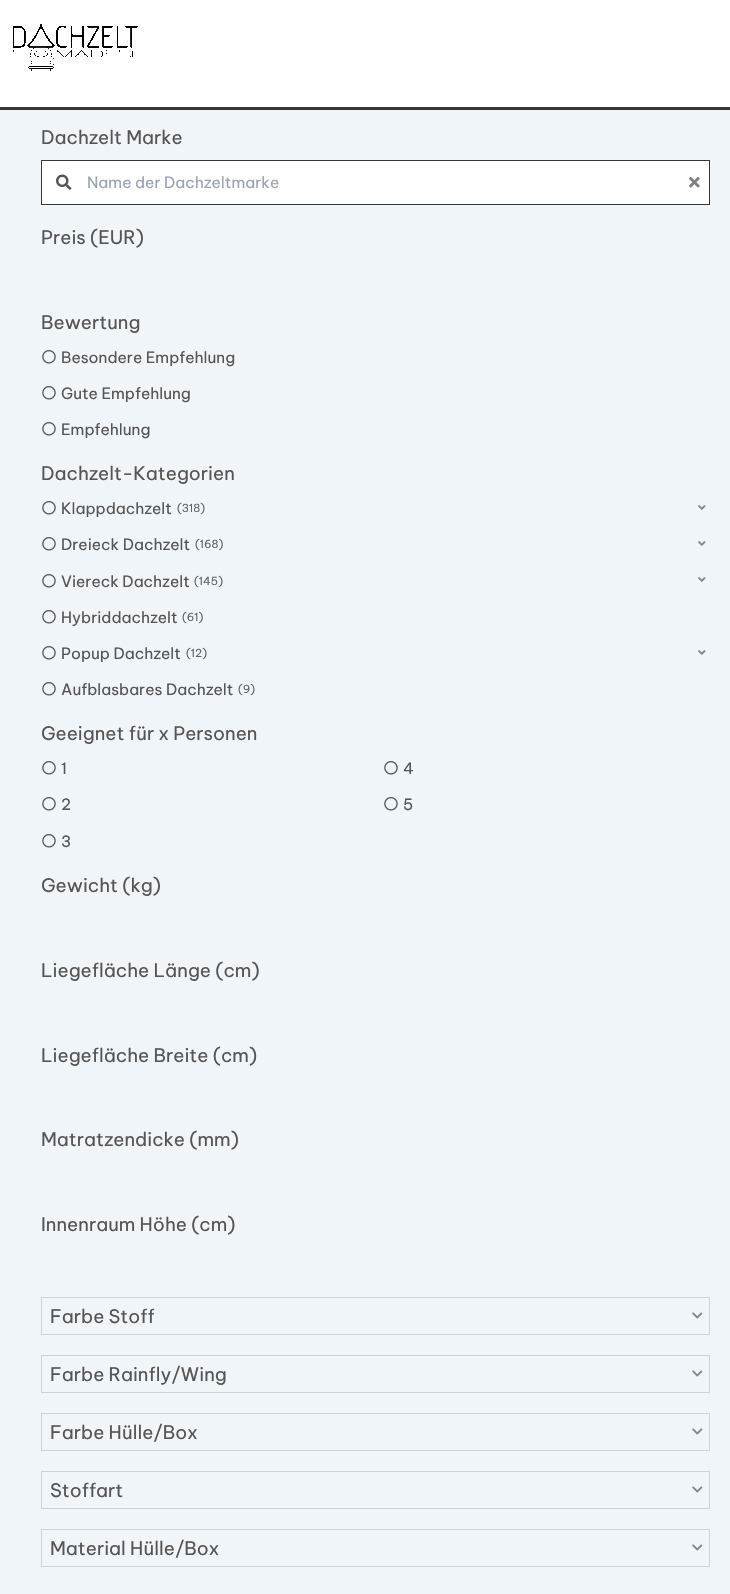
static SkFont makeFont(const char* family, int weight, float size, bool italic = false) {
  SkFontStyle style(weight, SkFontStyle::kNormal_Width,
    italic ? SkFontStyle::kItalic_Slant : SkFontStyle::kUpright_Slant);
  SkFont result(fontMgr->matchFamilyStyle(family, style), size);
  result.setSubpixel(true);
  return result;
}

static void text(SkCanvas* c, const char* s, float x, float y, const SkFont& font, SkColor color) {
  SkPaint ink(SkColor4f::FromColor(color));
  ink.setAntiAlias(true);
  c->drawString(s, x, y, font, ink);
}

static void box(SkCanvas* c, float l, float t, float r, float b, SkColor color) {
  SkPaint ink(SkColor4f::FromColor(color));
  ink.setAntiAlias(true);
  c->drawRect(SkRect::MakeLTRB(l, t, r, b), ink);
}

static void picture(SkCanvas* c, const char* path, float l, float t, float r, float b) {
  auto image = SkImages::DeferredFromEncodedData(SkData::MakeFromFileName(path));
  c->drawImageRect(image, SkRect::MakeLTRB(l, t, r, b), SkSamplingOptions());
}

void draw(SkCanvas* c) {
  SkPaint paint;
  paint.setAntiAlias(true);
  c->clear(0xfff0f5fa);
  box(c, 0, 0, 730, 107, 0xffffffff);
  box(c, 0, 107, 730, 110, 0xff373737);
  picture(c, "img_01.png", 13, 24, 138, 71);
  SkFont face1 = makeFont("Be Vietnam Pro", 400, 18.6f);
  text(c, "Dachzelt Marke", 41, 144, face1, 0xff555555);
  paint.setColor(0xffffffff);
  c->drawRect(SkRect::MakeLTRB(41.5f, 160.5f, 709.5f, 204.5f), paint);
  paint.setStyle(SkPaint::kStroke_Style);
  paint.setStrokeWidth(1);
  paint.setColor(0xff373737);
  c->drawRect(SkRect::MakeLTRB(41.5f, 160.5f, 709.5f, 204.5f), paint);
  picture(c, "img_02.png", 56, 174, 72, 190);
  SkFont face2 = makeFont("Be Vietnam Pro", 400, 15.5f);
  text(c, "Name der Dachzeltmarke", 87, 188, face2, 0xff9ca3af);
  picture(c, "img_03.png", 689, 176, 700, 188);
  text(c, "Preis (EUR)", 41, 244, face1, 0xff555555);
  text(c, "Bewertung", 41, 329, face1, 0xff555555);
  picture(c, "img_04.png", 42, 350, 56, 364);
  text(c, "Besondere Empfehlung", 61, 363, face2, 0xff555555);
  picture(c, "img_04.png", 42, 386, 56, 400);
  text(c, "Gute Empfehlung", 61, 399, face2, 0xff555555);
  picture(c, "img_04.png", 42, 422, 56, 436);
  text(c, "Empfehlung", 61, 435, face2, 0xff555555);
  text(c, "Dachzelt-Kategorien", 41, 480, face1, 0xff555555);
  picture(c, "img_04.png", 42, 501, 56, 515);
  text(c, "Klappdachzelt", 61, 514, face2, 0xff555555);
  SkFont face3 = makeFont("Be Vietnam Pro", 400, 11);
  text(c, "(318)", 177, 512, face3, 0xff656566);
  picture(c, "img_05.png", 698, 505, 706, 510);
  picture(c, "img_04.png", 42, 537, 56, 551);
  text(c, "Dreieck Dachzelt", 61, 550, face2, 0xff555555);
  text(c, "(168)", 195, 548, face3, 0xff656566);
  picture(c, "img_05.png", 698, 541, 706, 546);
  picture(c, "img_04.png", 42, 574, 56, 588);
  text(c, "Viereck Dachzelt", 61, 587, face2, 0xff555555);
  text(c, "(145)", 194, 585, face3, 0xff656566);
  picture(c, "img_05.png", 698, 577, 706, 582);
  picture(c, "img_04.png", 42, 610, 56, 624);
  text(c, "Hybriddachzelt", 61, 623, face2, 0xff555555);
  text(c, "(61)", 182, 621, face3, 0xff656566);
  picture(c, "img_04.png", 42, 646, 56, 660);
  text(c, "Popup Dachzelt", 61, 659, face2, 0xff555555);
  text(c, "(12)", 186, 657, face3, 0xff656566);
  picture(c, "img_05.png", 698, 650, 706, 655);
  picture(c, "img_04.png", 42, 682, 56, 696);
  text(c, "Aufblasbares Dachzelt", 61, 695, face2, 0xff555555);
  text(c, "(9)", 238, 693, face3, 0xff656566);
  text(c, "Geeignet für x Personen", 41, 740, face1, 0xff555555);
  picture(c, "img_04.png", 42, 761, 56, 775);
  text(c, "1", 61, 774, face2, 0xff555555);
  picture(c, "img_04.png", 384, 761, 398, 775);
  text(c, "4", 403, 774, face2, 0xff555555);
  picture(c, "img_04.png", 42, 797, 56, 811);
  text(c, "2", 61, 810, face2, 0xff555555);
  picture(c, "img_04.png", 384, 797, 398, 811);
  text(c, "5", 403, 810, face2, 0xff555555);
  picture(c, "img_04.png", 42, 834, 56, 848);
  text(c, "3", 61, 847, face2, 0xff555555);
  text(c, "Gewicht (kg)", 41, 892, face1, 0xff555555);
  text(c, "Liegefläche Länge (cm)", 41, 977, face1, 0xff555555);
  text(c, "Liegefläche Breite (cm)", 41, 1062, face1, 0xff555555);
  text(c, "Matratzendicke (mm)", 41, 1146, face1, 0xff555555);
  text(c, "Innenraum Höhe (cm)", 41, 1231, face1, 0xff555555);
  paint.setColor(0xffd1d1d1);
  c->drawRect(SkRect::MakeLTRB(41.5f, 1297.5f, 709.5f, 1334.5f), paint);
  text(c, "Farbe Stoff", 50, 1323, face1, 0xff555555);
  picture(c, "img_06.png", 692, 1312, 703, 1319);
  c->drawRect(SkRect::MakeLTRB(41.5f, 1355.5f, 709.5f, 1392.5f), paint);
  text(c, "Farbe Rainfly/Wing", 50, 1381, face1, 0xff555555);
  picture(c, "img_06.png", 692, 1370, 703, 1377);
  c->drawRect(SkRect::MakeLTRB(41.5f, 1413.5f, 709.5f, 1450.5f), paint);
  text(c, "Farbe Hülle/Box", 50, 1439, face1, 0xff555555);
  picture(c, "img_06.png", 692, 1428, 703, 1435);
  c->drawRect(SkRect::MakeLTRB(41.5f, 1471.5f, 709.5f, 1508.5f), paint);
  text(c, "Stoffart", 50, 1497, face1, 0xff555555);
  picture(c, "img_06.png", 692, 1486, 703, 1493);
  c->drawRect(SkRect::MakeLTRB(41.5f, 1529.5f, 709.5f, 1566.5f), paint);
  text(c, "Material Hülle/Box", 50, 1555, face1, 0xff555555);
  picture(c, "img_06.png", 692, 1544, 703, 1551);
}
